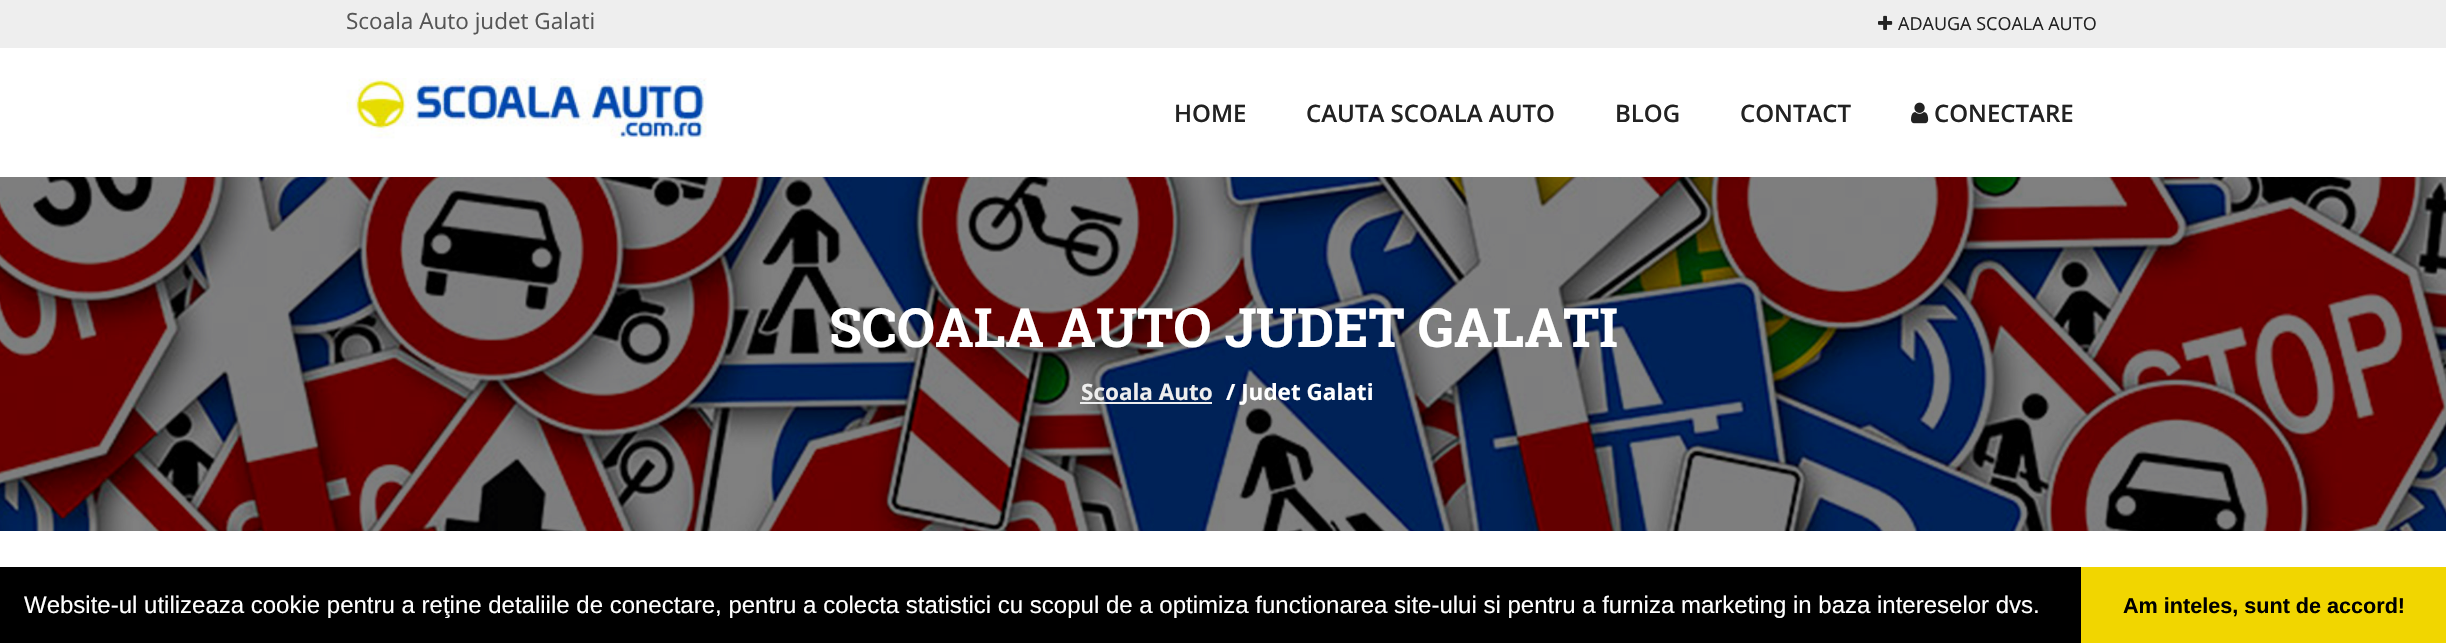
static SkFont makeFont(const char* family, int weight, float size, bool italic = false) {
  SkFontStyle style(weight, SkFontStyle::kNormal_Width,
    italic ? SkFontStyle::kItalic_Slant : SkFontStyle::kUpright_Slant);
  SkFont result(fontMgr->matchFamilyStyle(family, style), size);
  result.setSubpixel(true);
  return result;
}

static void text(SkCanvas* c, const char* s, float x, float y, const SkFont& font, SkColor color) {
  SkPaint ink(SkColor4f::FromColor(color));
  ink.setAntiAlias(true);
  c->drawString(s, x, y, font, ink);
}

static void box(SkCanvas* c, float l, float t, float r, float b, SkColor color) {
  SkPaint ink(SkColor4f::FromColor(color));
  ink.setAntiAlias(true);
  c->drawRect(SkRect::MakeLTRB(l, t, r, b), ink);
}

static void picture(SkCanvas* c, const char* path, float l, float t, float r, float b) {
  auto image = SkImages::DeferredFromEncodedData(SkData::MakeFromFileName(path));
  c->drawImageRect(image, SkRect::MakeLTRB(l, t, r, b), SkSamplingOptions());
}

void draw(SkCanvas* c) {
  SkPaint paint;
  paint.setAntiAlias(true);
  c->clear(0xffffffff);
  box(c, 0, 0, 2446, 48, 0xffeeeeee);
  SkFont face1 = makeFont("Open Sans", 400, 22.5f);
  text(c, "Scoala Auto judet Galati", 346, 29, face1, 0xff555555);
  picture(c, "img_01.png", 1878, 15, 1893, 30);
  SkFont face2 = makeFont("Open Sans", 400, 18);
  text(c, "ADAUGA SCOALA AUTO", 1898, 30, face2, 0xff222222);
  picture(c, "img_02.png", 346, 78, 707, 139);
  SkFont face3 = makeFont("Open Sans", 600, 24);
  text(c, "HOME", 1174, 122, face3, 0xff222222);
  text(c, "CAUTA SCOALA AUTO", 1306, 122, face3, 0xff222222);
  text(c, "BLOG", 1615, 122, face3, 0xff222222);
  text(c, "CONTACT", 1740, 122, face3, 0xff222222);
  picture(c, "img_03.png", 1911, 102, 1929, 124);
  text(c, "CONECTARE", 1934, 122, face3, 0xff222222);
  picture(c, "img_04.png", 0, 177, 2446, 531);
  SkFont face4 = makeFont("Roboto Slab", 700, 54);
  text(c, "SCOALA AUTO JUDET GALATI", 829, 347, face4, 0xffffffff);
  SkFont face5 = makeFont("Open Sans", 700, 22.5f);
  text(c, "Scoala Auto", 1081, 400, face5, 0xffeeeeee);
  box(c, 1080, 402, 1212, 404, 0xffeeeeee);
  text(c, "/ Judet Galati", 1226, 400, face5, 0xffffffff);
  box(c, 0, 567, 2081, 643, 0xff000000);
  SkFont face6 = makeFont("Liberation Sans", 400, 24);
  text(c, "Website-ul utilizeaza cookie pentru a reţine detaliile de conectare, pentru a colecta statistici cu scopul de a optimiza functionarea site-ului si pentru a furniza marketing in baza intereselor dvs.", 24, 613, face6, 0xffffffff);
  box(c, 2081, 567, 2446, 643, 0xfff1d600);
  SkFont face7 = makeFont("Liberation Sans", 700, 21.6f);
  text(c, "Am inteles, sunt de accord!", 2123, 613, face7, 0xff000000);
}
